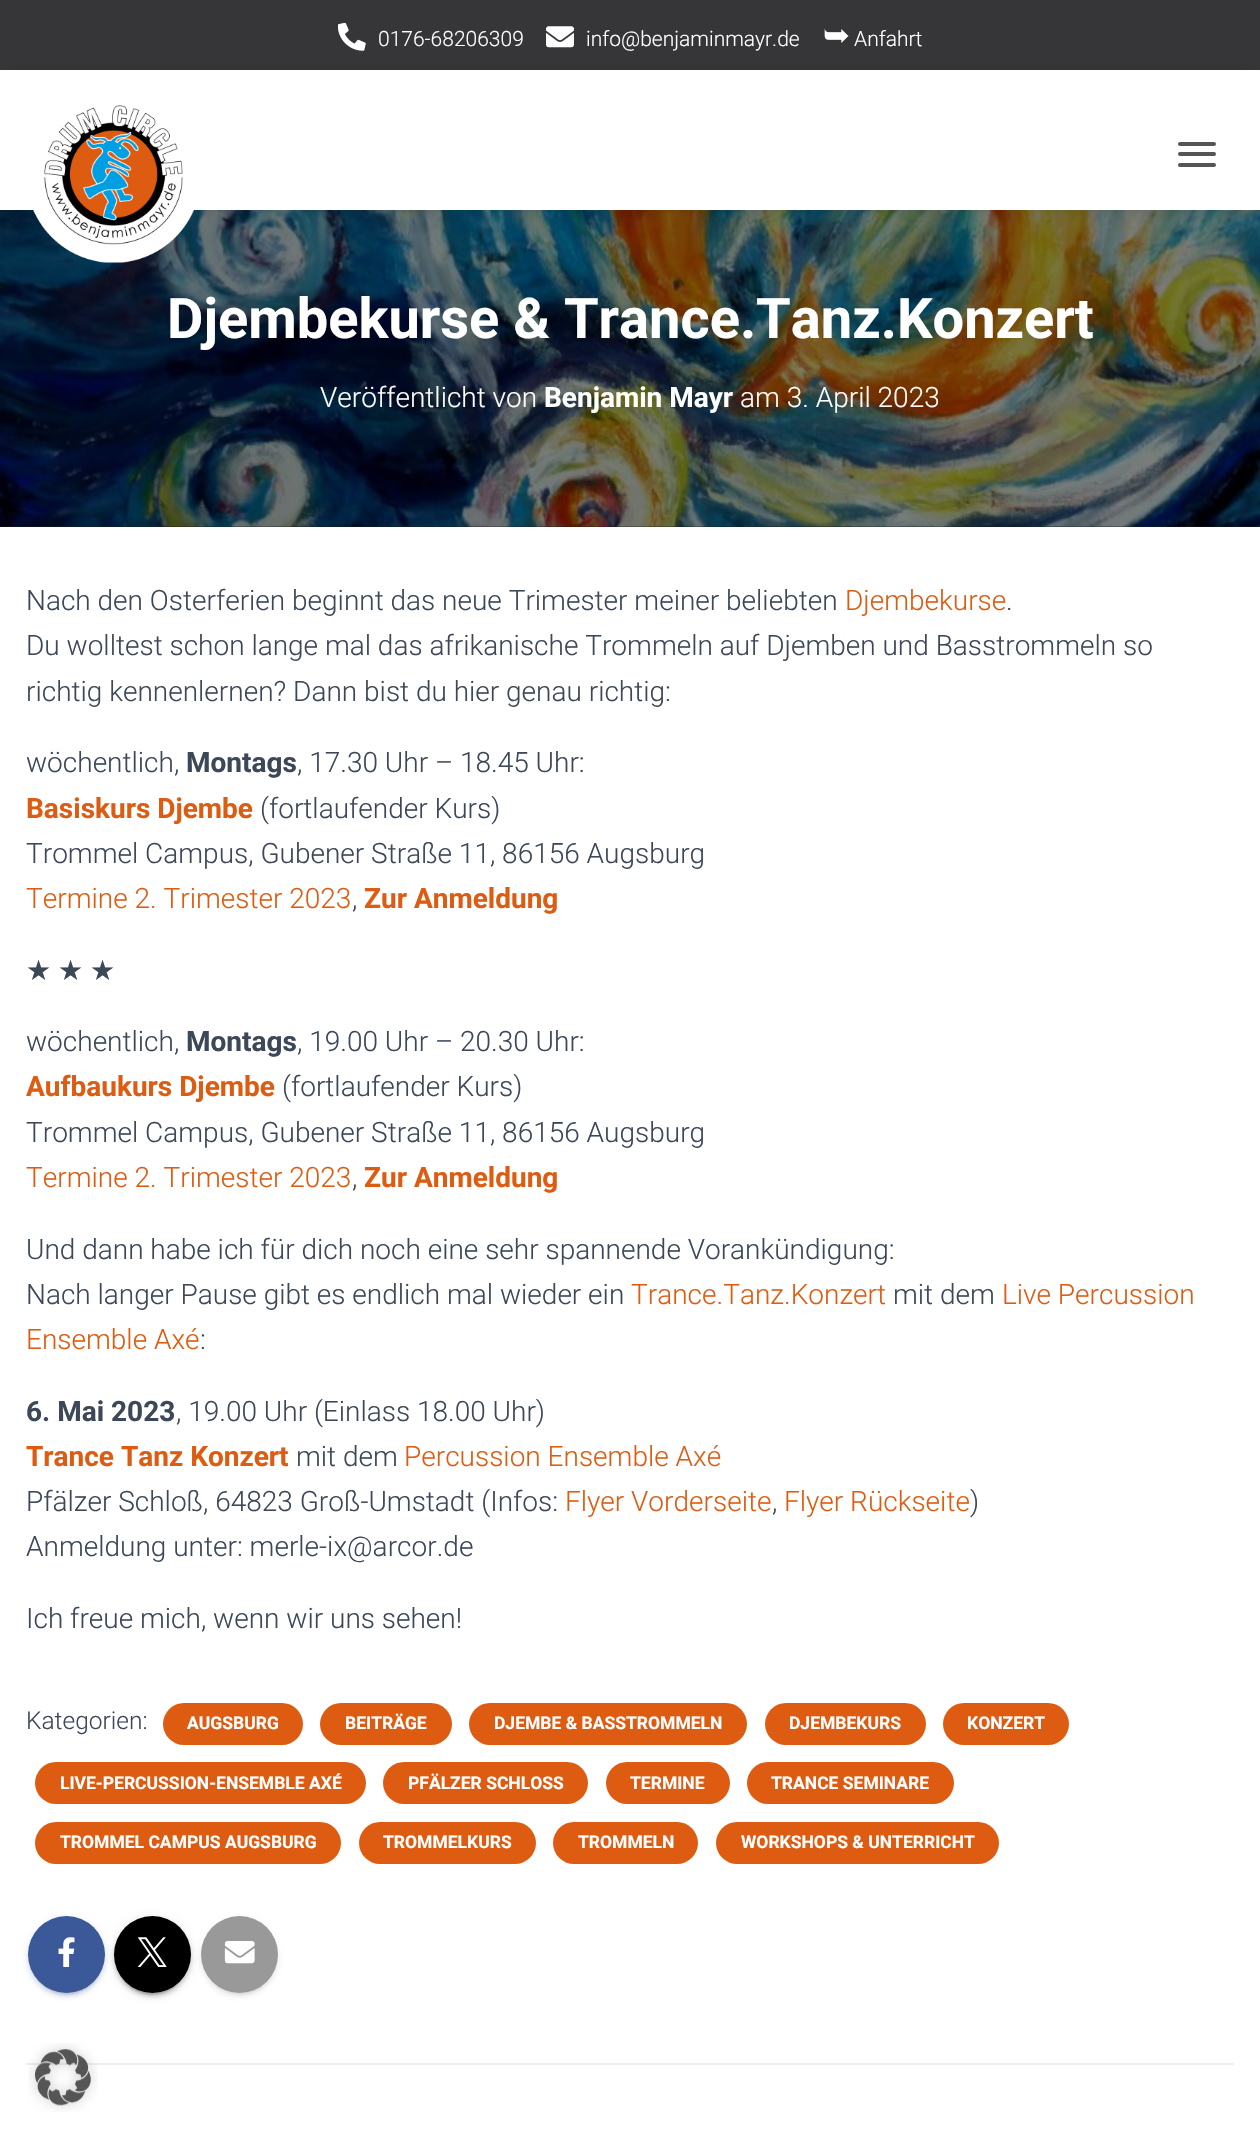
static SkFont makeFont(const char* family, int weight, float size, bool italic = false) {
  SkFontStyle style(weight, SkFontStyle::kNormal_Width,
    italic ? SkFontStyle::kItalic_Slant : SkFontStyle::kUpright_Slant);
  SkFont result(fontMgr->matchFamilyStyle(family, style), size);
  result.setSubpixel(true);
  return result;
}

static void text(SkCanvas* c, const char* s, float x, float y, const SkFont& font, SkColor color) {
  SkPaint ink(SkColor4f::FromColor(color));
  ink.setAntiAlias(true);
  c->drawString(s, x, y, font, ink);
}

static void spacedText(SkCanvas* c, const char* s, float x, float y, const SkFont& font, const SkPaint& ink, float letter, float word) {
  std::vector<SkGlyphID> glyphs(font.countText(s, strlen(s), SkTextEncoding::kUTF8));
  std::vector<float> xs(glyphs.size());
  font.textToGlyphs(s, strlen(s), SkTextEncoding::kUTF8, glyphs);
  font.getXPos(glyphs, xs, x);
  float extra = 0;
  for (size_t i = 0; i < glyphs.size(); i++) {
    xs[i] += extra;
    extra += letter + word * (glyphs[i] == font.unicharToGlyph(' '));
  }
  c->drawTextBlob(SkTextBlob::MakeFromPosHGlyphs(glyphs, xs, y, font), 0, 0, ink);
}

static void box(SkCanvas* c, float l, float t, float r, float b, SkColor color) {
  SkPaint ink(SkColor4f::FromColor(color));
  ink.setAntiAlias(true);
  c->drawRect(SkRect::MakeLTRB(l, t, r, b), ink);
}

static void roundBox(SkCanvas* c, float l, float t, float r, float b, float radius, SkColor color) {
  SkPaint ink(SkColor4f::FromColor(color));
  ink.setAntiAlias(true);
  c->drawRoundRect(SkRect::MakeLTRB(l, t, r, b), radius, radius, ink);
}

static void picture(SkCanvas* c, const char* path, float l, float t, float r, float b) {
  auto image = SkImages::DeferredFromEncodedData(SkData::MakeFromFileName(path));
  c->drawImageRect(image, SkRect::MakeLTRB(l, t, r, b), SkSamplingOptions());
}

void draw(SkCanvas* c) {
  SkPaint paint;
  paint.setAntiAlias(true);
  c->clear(0xff191a1c);
  box(c, 0, 0, 1260, 70, 0xff363537);
  picture(c, "img_01.png", 338, 23, 366, 51);
  SkFont face1 = makeFont("Roboto", 300, 21);
  text(c, "0176-68206309", 378, 46, face1, 0xffffffff);
  picture(c, "img_02.png", 546, 26, 574, 48);
  text(c, "info@benjaminmayr.de", 586, 46, face1, 0xffffffff);
  SkFont face2 = makeFont("DejaVu Sans", 400, 32);
  text(c, "➥", 823, 46, face2, 0xffffffff);
  text(c, "Anfahrt", 854, 46, face1, 0xffffffff);
  picture(c, "img_04.png", 0, 210, 1260, 527);
  paint.setColor(0x6b000000);
  paint.setMaskFilter(SkMaskFilter::MakeBlur(kNormal_SkBlurStyle, 9));
  c->drawRect(SkRect::MakeLTRB(11, 82, 1250, 201), paint);
  paint.setMaskFilter(nullptr);
  box(c, 0, 70, 1260, 210, 0xffffffff);
  picture(c, "img_03.png", 33, 105, 194, 263);
  roundBox(c, 1178, 142, 1216, 146, 2, 0xff555555);
  roundBox(c, 1178, 152, 1216, 156, 2, 0xff555555);
  roundBox(c, 1178, 163, 1216, 167, 2, 0xff555555);
  SkFont face3 = makeFont("Roboto", 700, 56);
  text(c, "Djembekurse & Trance.Tanz.Konzert", 167, 338, face3, 0xffffffff);
  SkFont face4 = makeFont("Roboto", 300, 28);
  text(c, "Veröffentlicht von", 320, 407, face4, 0xffffffff);
  SkFont face5 = makeFont("Roboto", 700, 28);
  text(c, "Benjamin Mayr", 544, 407, face5, 0xffffffff);
  text(c, "am 3. April 2023", 740, 407, face4, 0xffffffff);
  box(c, 0, 527, 1260, 2140, 0xffffffff);
  text(c, "Nach den Osterferien beginnt das neue Trimester meiner beliebten", 26, 610, face4, 0xff3c4858);
  text(c, "Djembekurse", 845, 610, face4, 0xffde5c11);
  text(c, ".", 1006, 610, face4, 0xff3c4858);
  text(c, "Du wolltest schon lange mal das afrikanische Trommeln auf Djemben und Basstrommeln so", 26, 655, face4, 0xff3c4858);
  text(c, "richtig kennenlernen? Dann bist du hier genau richtig:", 26, 701, face4, 0xff3c4858);
  text(c, "wöchentlich,", 26, 772, face4, 0xff3c4858);
  text(c, "Montags", 186, 772, face5, 0xff3c4858);
  text(c, ", 17.30 Uhr – 18.45 Uhr:", 297, 772, face4, 0xff3c4858);
  text(c, "Basiskurs Djembe", 26, 818, face5, 0xffde5c11);
  text(c, "(fortlaufender Kurs)", 260, 818, face4, 0xff3c4858);
  text(c, "Trommel Campus, Gubener Straße 11, 86156 Augsburg", 26, 863, face4, 0xff3c4858);
  text(c, "Termine 2. Trimester 2023", 26, 908, face4, 0xffde5c11);
  text(c, ",", 352, 908, face4, 0xff3c4858);
  text(c, "Zur Anmeldung", 364, 908, face5, 0xffde5c11);
  SkFont face6 = makeFont("DejaVu Sans", 400, 28);
  paint.setColor(0xff3c4858);
  spacedText(c, "★ ★ ★", 26, 980, face6, paint, 0, -2);
  text(c, "wöchentlich,", 26, 1051, face4, 0xff3c4858);
  text(c, "Montags", 186, 1051, face5, 0xff3c4858);
  text(c, ", 19.00 Uhr – 20.30 Uhr:", 297, 1051, face4, 0xff3c4858);
  text(c, "Aufbaukurs Djembe", 26, 1096, face5, 0xffde5c11);
  text(c, "(fortlaufender Kurs)", 282, 1096, face4, 0xff3c4858);
  text(c, "Trommel Campus, Gubener Straße 11, 86156 Augsburg", 26, 1142, face4, 0xff3c4858);
  text(c, "Termine 2. Trimester 2023", 26, 1187, face4, 0xffde5c11);
  text(c, ",", 352, 1187, face4, 0xff3c4858);
  text(c, "Zur Anmeldung", 364, 1187, face5, 0xffde5c11);
  text(c, "Und dann habe ich für dich noch eine sehr spannende Vorankündigung:", 26, 1259, face4, 0xff3c4858);
  text(c, "Nach langer Pause gibt es endlich mal wieder ein", 26, 1304, face4, 0xff3c4858);
  text(c, "Trance.Tanz.Konzert", 631, 1304, face4, 0xffde5c11);
  text(c, "mit dem", 893, 1304, face4, 0xff3c4858);
  text(c, "Live Percussion", 1002, 1304, face4, 0xffde5c11);
  text(c, "Ensemble Axé", 26, 1349, face4, 0xffde5c11);
  text(c, ":", 200, 1349, face4, 0xff3c4858);
  text(c, "6. Mai 2023", 26, 1421, face5, 0xff3c4858);
  text(c, ", 19.00 Uhr (Einlass 18.00 Uhr)", 176, 1421, face4, 0xff3c4858);
  text(c, "Trance Tanz Konzert", 26, 1466, face5, 0xffde5c11);
  text(c, "mit dem", 296, 1466, face4, 0xff3c4858);
  text(c, "Percussion Ensemble Axé", 404, 1466, face4, 0xffde5c11);
  text(c, "Pfälzer Schloß, 64823 Groß-Umstadt (Infos:", 26, 1511, face4, 0xff3c4858);
  text(c, "Flyer Vorderseite", 565, 1511, face4, 0xffde5c11);
  text(c, ",", 772, 1511, face4, 0xff3c4858);
  text(c, "Flyer Rückseite", 784, 1511, face4, 0xffde5c11);
  text(c, ")", 970, 1511, face4, 0xff3c4858);
  text(c, "Anmeldung unter: merle-ix@arcor.de", 26, 1556, face4, 0xff3c4858);
  text(c, "Ich freue mich, wenn wir uns sehen!", 26, 1628, face4, 0xff3c4858);
  SkFont face7 = makeFont("Roboto", 300, 24.5f);
  text(c, "Kategorien:", 26, 1729, face7, 0xff3c4858);
  roundBox(c, 163, 1703, 303, 1745, 21, 0xffde5c11);
  SkFont face8 = makeFont("Roboto", 700, 17.5f);
  text(c, "AUGSBURG", 187, 1729, face8, 0xffffffff);
  roundBox(c, 320, 1703, 452, 1745, 21, 0xffde5c11);
  text(c, "BEITRÄGE", 345, 1729, face8, 0xffffffff);
  roundBox(c, 469, 1703, 747, 1745, 21, 0xffde5c11);
  text(c, "DJEMBE & BASSTROMMELN", 494, 1729, face8, 0xffffffff);
  roundBox(c, 765, 1703, 926, 1745, 21, 0xffde5c11);
  text(c, "DJEMBEKURS", 789, 1729, face8, 0xffffffff);
  roundBox(c, 943, 1703, 1069, 1745, 21, 0xffde5c11);
  text(c, "KONZERT", 967, 1729, face8, 0xffffffff);
  roundBox(c, 35, 1762, 366, 1804, 21, 0xffde5c11);
  text(c, "LIVE-PERCUSSION-ENSEMBLE AXÉ", 60, 1789, face8, 0xffffffff);
  roundBox(c, 383, 1762, 588, 1804, 21, 0xffde5c11);
  text(c, "PFÄLZER SCHLOSS", 408, 1789, face8, 0xffffffff);
  roundBox(c, 606, 1762, 730, 1804, 21, 0xffde5c11);
  text(c, "TERMINE", 630, 1789, face8, 0xffffffff);
  roundBox(c, 747, 1762, 954, 1804, 21, 0xffde5c11);
  text(c, "TRANCE SEMINARE", 771, 1789, face8, 0xffffffff);
  roundBox(c, 35, 1822, 341, 1864, 21, 0xffde5c11);
  text(c, "TROMMEL CAMPUS AUGSBURG", 60, 1848, face8, 0xffffffff);
  roundBox(c, 359, 1822, 536, 1864, 21, 0xffde5c11);
  text(c, "TROMMELKURS", 383, 1848, face8, 0xffffffff);
  roundBox(c, 553, 1822, 698, 1864, 21, 0xffde5c11);
  text(c, "TROMMELN", 578, 1848, face8, 0xffffffff);
  roundBox(c, 716, 1822, 999, 1864, 21, 0xffde5c11);
  text(c, "WORKSHOPS & UNTERRICHT", 741, 1848, face8, 0xffffffff);
  paint.setColor(0x1f3b5998);
  paint.setMaskFilter(SkMaskFilter::MakeBlur(kNormal_SkBlurStyle, 4.5f));
  c->drawRoundRect(SkRect::MakeLTRB(28, 1918, 105, 1995), 38.5f, 38.5f, paint);
  paint.setMaskFilter(nullptr);
  paint.setColor(0x333b5998);
  paint.setMaskFilter(SkMaskFilter::MakeBlur(kNormal_SkBlurStyle, 1));
  c->drawRoundRect(SkRect::MakeLTRB(32, 1925, 102, 1995), 35, 35, paint);
  paint.setMaskFilter(nullptr);
  paint.setColor(0x243b5998);
  paint.setMaskFilter(SkMaskFilter::MakeBlur(kNormal_SkBlurStyle, 2));
  c->drawRoundRect(SkRect::MakeLTRB(28, 1920, 105, 1997), 38.5f, 38.5f, paint);
  paint.setMaskFilter(nullptr);
  paint.setColor(0xff3b5998);
  c->drawCircle(66.5f, 1954.5f, 38.5f, paint);
  picture(c, "img_05.png", 58, 1937, 75, 1967);
  paint.setColor(0x1f000000);
  paint.setMaskFilter(SkMaskFilter::MakeBlur(kNormal_SkBlurStyle, 4.5f));
  c->drawRoundRect(SkRect::MakeLTRB(114, 1918, 191, 1995), 38.5f, 38.5f, paint);
  paint.setMaskFilter(nullptr);
  paint.setColor(0x33000000);
  paint.setMaskFilter(SkMaskFilter::MakeBlur(kNormal_SkBlurStyle, 1));
  c->drawRoundRect(SkRect::MakeLTRB(117, 1925, 187, 1995), 35, 35, paint);
  paint.setMaskFilter(nullptr);
  paint.setColor(0x24000000);
  paint.setMaskFilter(SkMaskFilter::MakeBlur(kNormal_SkBlurStyle, 2));
  c->drawRoundRect(SkRect::MakeLTRB(114, 1920, 191, 1997), 38.5f, 38.5f, paint);
  paint.setMaskFilter(nullptr);
  paint.setColor(0xff000000);
  c->drawCircle(152.5f, 1954.5f, 38.5f, paint);
  picture(c, "img_06.png", 137, 1937, 167, 1967);
  paint.setColor(0x1f999999);
  paint.setMaskFilter(SkMaskFilter::MakeBlur(kNormal_SkBlurStyle, 4.5f));
  c->drawRoundRect(SkRect::MakeLTRB(201, 1918, 278, 1995), 38.5f, 38.5f, paint);
  paint.setMaskFilter(nullptr);
  paint.setColor(0x33999999);
  paint.setMaskFilter(SkMaskFilter::MakeBlur(kNormal_SkBlurStyle, 1));
  c->drawRoundRect(SkRect::MakeLTRB(205, 1925, 275, 1995), 35, 35, paint);
  paint.setMaskFilter(nullptr);
  paint.setColor(0x24999999);
  paint.setMaskFilter(SkMaskFilter::MakeBlur(kNormal_SkBlurStyle, 2));
  c->drawRoundRect(SkRect::MakeLTRB(201, 1920, 278, 1997), 38.5f, 38.5f, paint);
  paint.setMaskFilter(nullptr);
  paint.setColor(0xff999999);
  c->drawCircle(239.5f, 1954.5f, 38.5f, paint);
  picture(c, "img_07.png", 224, 1941, 255, 1964);
  box(c, 26, 2063, 1234, 2065, 0xffeeeeee);
  picture(c, "img_08.png", 28, 2043, 98, 2112);
}
